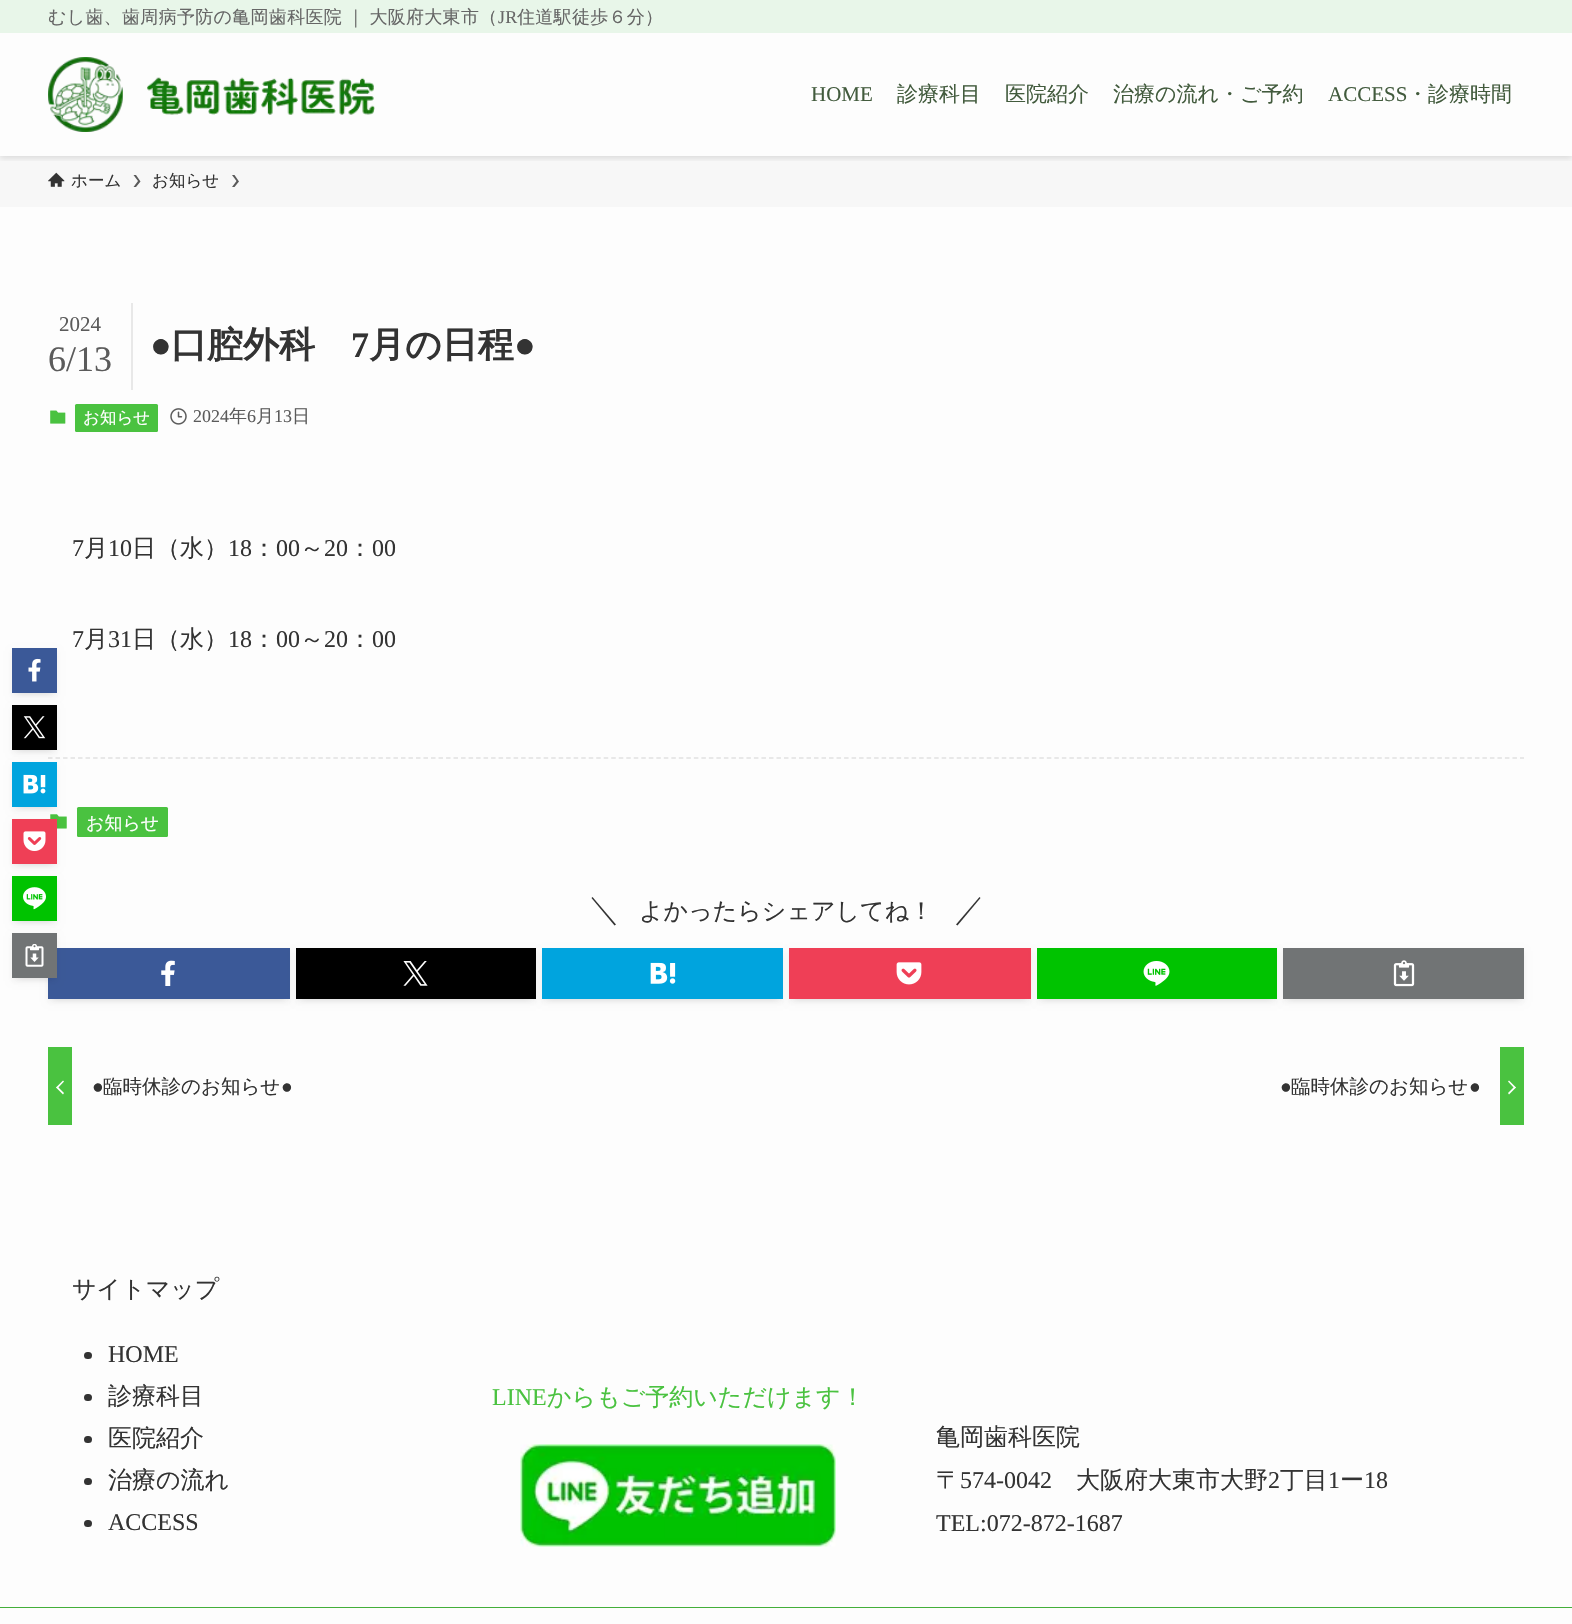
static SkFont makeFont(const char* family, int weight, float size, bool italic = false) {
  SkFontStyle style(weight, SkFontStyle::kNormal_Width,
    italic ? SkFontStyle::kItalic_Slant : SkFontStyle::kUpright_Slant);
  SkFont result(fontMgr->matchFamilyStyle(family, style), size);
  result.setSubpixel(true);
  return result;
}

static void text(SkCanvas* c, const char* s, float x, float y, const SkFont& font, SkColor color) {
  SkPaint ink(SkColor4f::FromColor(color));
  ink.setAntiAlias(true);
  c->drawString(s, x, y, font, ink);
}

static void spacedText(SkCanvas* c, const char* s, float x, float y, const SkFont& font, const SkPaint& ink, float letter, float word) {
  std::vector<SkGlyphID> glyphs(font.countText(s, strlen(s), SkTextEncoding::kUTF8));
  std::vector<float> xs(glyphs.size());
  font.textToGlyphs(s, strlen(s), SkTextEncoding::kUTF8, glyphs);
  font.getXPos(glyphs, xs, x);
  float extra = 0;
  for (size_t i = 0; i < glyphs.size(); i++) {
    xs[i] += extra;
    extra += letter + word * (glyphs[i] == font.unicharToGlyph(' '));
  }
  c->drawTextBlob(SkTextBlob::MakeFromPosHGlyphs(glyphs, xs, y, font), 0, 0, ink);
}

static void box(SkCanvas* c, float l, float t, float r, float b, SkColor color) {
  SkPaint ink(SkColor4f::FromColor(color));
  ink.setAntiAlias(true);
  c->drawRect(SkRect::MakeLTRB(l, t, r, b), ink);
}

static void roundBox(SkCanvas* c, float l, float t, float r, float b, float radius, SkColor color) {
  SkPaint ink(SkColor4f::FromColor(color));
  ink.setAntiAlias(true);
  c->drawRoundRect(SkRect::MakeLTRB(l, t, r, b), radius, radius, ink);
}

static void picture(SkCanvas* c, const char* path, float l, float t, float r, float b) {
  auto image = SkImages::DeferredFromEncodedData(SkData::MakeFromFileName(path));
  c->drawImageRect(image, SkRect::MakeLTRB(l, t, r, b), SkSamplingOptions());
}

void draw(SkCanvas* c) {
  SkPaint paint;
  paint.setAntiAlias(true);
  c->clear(0xfffdfdfd);
  box(c, 0, 156, 1572, 207, 0xfff7f7f7);
  c->save();
  c->clipRect(SkRect::MakeLTRB(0, 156, 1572, 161));
  paint.setColor(0x1f000000);
  paint.setMaskFilter(SkMaskFilter::MakeBlur(kNormal_SkBlurStyle, 3));
  c->drawRect(SkRect::MakeLTRB(0, 2, 1572, 158), paint);
  paint.setMaskFilter(nullptr);
  c->restore();
  box(c, 0, 0, 1572, 33, 0xffe8f6e9);
  SkFont face1 = makeFont("WenQuanYi Zen Hei", 500, 18);
  paint.setColor(0xff666666);
  spacedText(c, "むし歯、歯周病予防の亀岡歯科医院 ｜ 大阪府大東市（", 48, 23, face1, paint, 0.3f, -1);
  SkFont face2 = makeFont("Liberation Serif", 400, 18);
  spacedText(c, "JR", 498, 23, face2, paint, 0.3f, 0);
  spacedText(c, "住道駅徒歩６分）", 517, 23, face1, paint, 0.3f, 0);
  picture(c, "img_01.png", 48, 57, 375, 132);
  SkFont face3 = makeFont("Liberation Serif", 400, 21);
  text(c, "HOME", 811, 101, face3, 0xff425b3d);
  SkFont face4 = makeFont("WenQuanYi Zen Hei", 500, 21);
  text(c, "診療科目", 897, 101, face4, 0xff425b3d);
  text(c, "医院紹介", 1005, 101, face4, 0xff425b3d);
  text(c, "治療の流れ・ご予約", 1113, 101, face4, 0xff425b3d);
  text(c, "ACCESS", 1328, 101, face3, 0xff425b3d);
  text(c, "・診療時間", 1407, 101, face4, 0xff425b3d);
  picture(c, "img_02.png", 48, 172, 65, 187);
  SkFont face5 = makeFont("WenQuanYi Zen Hei", 500, 16.5f);
  text(c, "ホーム", 71, 186, face5, 0xff333333);
  paint.setColor(0xff5a5a5a);
  c->drawPath(SkPathBuilder().moveTo(136, 175).lineTo(133.5f, 175).lineTo(138, 181).lineTo(133.5f, 187).lineTo(136, 187).lineTo(140.5f, 181.5f).close().detach(), paint);
  text(c, "お知らせ", 152, 186, face5, 0xff333333);
  c->drawPath(SkPathBuilder().moveTo(234.5f, 175).lineTo(232, 175).lineTo(236.5f, 181).lineTo(232, 187).lineTo(234.5f, 187).lineTo(239, 181.5f).close().detach(), paint);
  box(c, 131, 303, 133, 390, 0xffe8e8e8);
  text(c, "2024", 59, 331, face3, 0xff5b5b5b);
  SkFont face6 = makeFont("Liberation Serif", 400, 36);
  text(c, "6/13", 48, 371, face6, 0xff5b5b5b);
  SkFont face7 = makeFont("Liberation Serif", 700, 36);
  text(c, "●", 150, 357, face7, 0xff333333);
  SkFont face8 = makeFont("WenQuanYi Zen Hei", 700, 36);
  text(c, "口腔外科", 171, 357, face8, 0xff333333);
  text(c, "7", 351, 357, face7, 0xff333333);
  text(c, "月の日程", 369, 357, face8, 0xff333333);
  text(c, "●", 514, 357, face7, 0xff333333);
  picture(c, "img_03.png", 50, 410, 66, 424);
  roundBox(c, 75, 404, 158, 432, 1.5f, 0xff4ac240);
  text(c, "お知らせ", 83, 423, face5, 0xffffffff);
  picture(c, "img_04.png", 170, 408, 187, 425);
  text(c, "2024", 193, 422, face2, 0xff5b5b5b);
  text(c, "年", 229, 422, face1, 0xff5b5b5b);
  text(c, "6", 247, 422, face2, 0xff5b5b5b);
  text(c, "月", 256, 422, face1, 0xff5b5b5b);
  text(c, "13", 274, 422, face2, 0xff5b5b5b);
  text(c, "日", 292, 422, face1, 0xff5b5b5b);
  SkFont face9 = makeFont("Liberation Serif", 400, 24);
  text(c, "7", 72, 556, face9, 0xff333333);
  SkFont face10 = makeFont("WenQuanYi Zen Hei", 500, 24);
  text(c, "月", 84, 556, face10, 0xff333333);
  text(c, "10", 108, 556, face9, 0xff333333);
  text(c, "日（水）", 132, 556, face10, 0xff333333);
  text(c, "18", 228, 556, face9, 0xff333333);
  text(c, "：", 252, 556, face10, 0xff333333);
  text(c, "00", 276, 556, face9, 0xff333333);
  text(c, "～", 300, 556, face10, 0xff333333);
  text(c, "20", 324, 556, face9, 0xff333333);
  text(c, "：", 348, 556, face10, 0xff333333);
  text(c, "00", 372, 556, face9, 0xff333333);
  text(c, "7", 72, 647, face9, 0xff333333);
  text(c, "月", 84, 647, face10, 0xff333333);
  text(c, "31", 108, 647, face9, 0xff333333);
  text(c, "日（水）", 132, 647, face10, 0xff333333);
  text(c, "18", 228, 647, face9, 0xff333333);
  text(c, "：", 252, 647, face10, 0xff333333);
  text(c, "00", 276, 647, face9, 0xff333333);
  text(c, "～", 300, 647, face10, 0xff333333);
  text(c, "20", 324, 647, face9, 0xff333333);
  text(c, "：", 348, 647, face10, 0xff333333);
  text(c, "00", 372, 647, face9, 0xff333333);
  paint.setColor(0x1a000000);
  paint.setMaskFilter(SkMaskFilter::MakeBlur(kNormal_SkBlurStyle, 3));
  c->drawRect(SkRect::MakeLTRB(18, 660, 51, 693), paint);
  paint.setMaskFilter(nullptr);
  paint.setColor(0x0d000000);
  paint.setMaskFilter(SkMaskFilter::MakeBlur(kNormal_SkBlurStyle, 3));
  c->drawRect(SkRect::MakeLTRB(12, 651, 57, 696), paint);
  paint.setMaskFilter(nullptr);
  box(c, 12, 648, 57, 693, 0xff3b5998);
  picture(c, "img_05.png", 28, 658, 41, 682);
  paint.setStyle(SkPaint::kStroke_Style);
  paint.setStrokeWidth(1.5f);
  paint.setColor(0xffe2e2e2);
  paint.setPathEffect(SkDashPathEffect::Make({{4.5f, 3.01f}}, 0));
  c->drawPath(SkPathBuilder().moveTo(48, 758).lineTo(1524, 758).detach(), paint);
  paint.setPathEffect(nullptr);
  paint.setStyle(SkPaint::kFill_Style);
  paint.setColor(0x1a000000);
  paint.setMaskFilter(SkMaskFilter::MakeBlur(kNormal_SkBlurStyle, 3));
  c->drawRect(SkRect::MakeLTRB(18, 717, 51, 750), paint);
  paint.setMaskFilter(nullptr);
  paint.setColor(0x0d000000);
  paint.setMaskFilter(SkMaskFilter::MakeBlur(kNormal_SkBlurStyle, 3));
  c->drawRect(SkRect::MakeLTRB(12, 708, 57, 753), paint);
  paint.setMaskFilter(nullptr);
  box(c, 12, 705, 57, 750, 0xff000000);
  picture(c, "img_06.png", 23, 716, 46, 739);
  picture(c, "img_11.png", 50, 814, 67, 829);
  paint.setColor(0x1a000000);
  paint.setMaskFilter(SkMaskFilter::MakeBlur(kNormal_SkBlurStyle, 3));
  c->drawRect(SkRect::MakeLTRB(18, 774, 51, 807), paint);
  paint.setMaskFilter(nullptr);
  paint.setColor(0x0d000000);
  paint.setMaskFilter(SkMaskFilter::MakeBlur(kNormal_SkBlurStyle, 3));
  c->drawRect(SkRect::MakeLTRB(12, 765, 57, 810), paint);
  paint.setMaskFilter(nullptr);
  box(c, 12, 762, 57, 807, 0xff00a4de);
  picture(c, "img_07.png", 23, 774, 46, 794);
  paint.setColor(0x1a000000);
  paint.setMaskFilter(SkMaskFilter::MakeBlur(kNormal_SkBlurStyle, 3));
  c->drawRect(SkRect::MakeLTRB(18, 831, 51, 864), paint);
  paint.setMaskFilter(nullptr);
  paint.setColor(0x0d000000);
  paint.setMaskFilter(SkMaskFilter::MakeBlur(kNormal_SkBlurStyle, 3));
  c->drawRect(SkRect::MakeLTRB(12, 822, 57, 867), paint);
  paint.setMaskFilter(nullptr);
  box(c, 12, 819, 57, 864, 0xffef3f56);
  picture(c, "img_08.png", 23, 831, 46, 851);
  paint.setColor(0x1a000000);
  paint.setMaskFilter(SkMaskFilter::MakeBlur(kNormal_SkBlurStyle, 3));
  c->drawRect(SkRect::MakeLTRB(18, 888, 51, 921), paint);
  paint.setMaskFilter(nullptr);
  paint.setColor(0x0d000000);
  paint.setMaskFilter(SkMaskFilter::MakeBlur(kNormal_SkBlurStyle, 3));
  c->drawRect(SkRect::MakeLTRB(12, 879, 57, 924), paint);
  paint.setMaskFilter(nullptr);
  box(c, 12, 876, 57, 921, 0xff00c300);
  picture(c, "img_09.png", 23, 887, 46, 910);
  paint.setColor(0x1a000000);
  paint.setMaskFilter(SkMaskFilter::MakeBlur(kNormal_SkBlurStyle, 3));
  c->drawRect(SkRect::MakeLTRB(54, 960, 284, 999), paint);
  paint.setMaskFilter(nullptr);
  paint.setColor(0x0d000000);
  paint.setMaskFilter(SkMaskFilter::MakeBlur(kNormal_SkBlurStyle, 3));
  c->drawRect(SkRect::MakeLTRB(48, 951, 290, 1002), paint);
  paint.setMaskFilter(nullptr);
  box(c, 48, 948, 290, 999, 0xff3b5998);
  paint.setColor(0x1a000000);
  paint.setMaskFilter(SkMaskFilter::MakeBlur(kNormal_SkBlurStyle, 3));
  c->drawRect(SkRect::MakeLTRB(18, 945, 51, 978), paint);
  paint.setMaskFilter(nullptr);
  paint.setColor(0x0d000000);
  paint.setMaskFilter(SkMaskFilter::MakeBlur(kNormal_SkBlurStyle, 3));
  c->drawRect(SkRect::MakeLTRB(12, 936, 57, 981), paint);
  paint.setMaskFilter(nullptr);
  box(c, 12, 933, 57, 978, 0xff717475);
  picture(c, "img_10.png", 25, 944, 44, 967);
  roundBox(c, 77, 807, 168, 837, 1.5f, 0xff4ac240);
  text(c, "お知らせ", 86, 829, face1, 0xffffffff);
  paint.setColor(0xff333333);
  c->drawPath(SkPathBuilder().moveTo(591.5f, 898).lineTo(592.5f, 897).lineTo(616, 924.5f).lineTo(614.5f, 925.5f).close().detach(), paint);
  text(c, "よかったらシェアしてね！", 639, 919, face10, 0xff333333);
  c->drawPath(SkPathBuilder().moveTo(979.5f, 897).lineTo(980.5f, 898).lineTo(957.5f, 925.5f).lineTo(956, 924.5f).close().detach(), paint);
  picture(c, "img_12.png", 161, 960, 175, 986);
  paint.setColor(0x1a000000);
  paint.setMaskFilter(SkMaskFilter::MakeBlur(kNormal_SkBlurStyle, 3));
  c->drawRect(SkRect::MakeLTRB(302, 960, 530, 999), paint);
  paint.setMaskFilter(nullptr);
  paint.setColor(0x0d000000);
  paint.setMaskFilter(SkMaskFilter::MakeBlur(kNormal_SkBlurStyle, 3));
  c->drawRect(SkRect::MakeLTRB(296, 951, 536, 1002), paint);
  paint.setMaskFilter(nullptr);
  box(c, 296, 948, 536, 999, 0xff000000);
  picture(c, "img_13.png", 403, 961, 428, 986);
  paint.setColor(0x1a000000);
  paint.setMaskFilter(SkMaskFilter::MakeBlur(kNormal_SkBlurStyle, 3));
  c->drawRect(SkRect::MakeLTRB(548, 960, 777, 999), paint);
  paint.setMaskFilter(nullptr);
  paint.setColor(0x0d000000);
  paint.setMaskFilter(SkMaskFilter::MakeBlur(kNormal_SkBlurStyle, 3));
  c->drawRect(SkRect::MakeLTRB(542, 951, 783, 1002), paint);
  paint.setMaskFilter(nullptr);
  box(c, 542, 948, 783, 999, 0xff00a4de);
  picture(c, "img_14.png", 650, 962, 676, 984);
  paint.setColor(0x1a000000);
  paint.setMaskFilter(SkMaskFilter::MakeBlur(kNormal_SkBlurStyle, 3));
  c->drawRect(SkRect::MakeLTRB(795, 960, 1025, 999), paint);
  paint.setMaskFilter(nullptr);
  paint.setColor(0x0d000000);
  paint.setMaskFilter(SkMaskFilter::MakeBlur(kNormal_SkBlurStyle, 3));
  c->drawRect(SkRect::MakeLTRB(789, 951, 1031, 1002), paint);
  paint.setMaskFilter(nullptr);
  box(c, 789, 948, 1031, 999, 0xffef3f56);
  picture(c, "img_15.png", 896, 962, 922, 985);
  paint.setColor(0x1a000000);
  paint.setMaskFilter(SkMaskFilter::MakeBlur(kNormal_SkBlurStyle, 3));
  c->drawRect(SkRect::MakeLTRB(1043, 960, 1271, 999), paint);
  paint.setMaskFilter(nullptr);
  paint.setColor(0x0d000000);
  paint.setMaskFilter(SkMaskFilter::MakeBlur(kNormal_SkBlurStyle, 3));
  c->drawRect(SkRect::MakeLTRB(1037, 951, 1277, 1002), paint);
  paint.setMaskFilter(nullptr);
  box(c, 1037, 948, 1277, 999, 0xff00c300);
  picture(c, "img_16.png", 1143, 961, 1170, 986);
  paint.setColor(0x1a000000);
  paint.setMaskFilter(SkMaskFilter::MakeBlur(kNormal_SkBlurStyle, 3));
  c->drawRect(SkRect::MakeLTRB(1289, 960, 1518, 999), paint);
  paint.setMaskFilter(nullptr);
  paint.setColor(0x0d000000);
  paint.setMaskFilter(SkMaskFilter::MakeBlur(kNormal_SkBlurStyle, 3));
  c->drawRect(SkRect::MakeLTRB(1283, 951, 1524, 1002), paint);
  paint.setMaskFilter(nullptr);
  box(c, 1283, 948, 1524, 999, 0xff717475);
  picture(c, "img_17.png", 1393, 960, 1415, 987);
  box(c, 48, 1047, 72, 1125, 0xff4ac240);
  paint.setColor(0xffffffff);
  c->drawPath(SkPathBuilder().moveTo(57.5f, 1086.5f).lineTo(64, 1093).lineTo(63, 1094.5f).lineTo(56, 1087.5f).close().detach(), paint);
  c->drawPath(SkPathBuilder().moveTo(63, 1080.5f).lineTo(64, 1081.5f).lineTo(57.5f, 1088.5f).lineTo(56, 1087.5f).close().detach(), paint);
  SkFont face11 = makeFont("Liberation Serif", 400, 19.5f);
  text(c, "●", 92, 1093, face11, 0xff333333);
  SkFont face12 = makeFont("WenQuanYi Zen Hei", 500, 19.5f);
  text(c, "臨時休診のお知らせ", 103, 1093, face12, 0xff333333);
  text(c, "●", 281, 1093, face11, 0xff333333);
  box(c, 1500, 1047, 1524, 1125, 0xff4ac240);
  text(c, "●", 1280, 1093, face11, 0xff333333);
  text(c, "臨時休診のお知らせ", 1291, 1093, face12, 0xff333333);
  text(c, "●", 1469, 1093, face11, 0xff333333);
  c->drawPath(SkPathBuilder().moveTo(1508, 1081.5f).lineTo(1509, 1080.5f).lineTo(1516, 1087.5f).lineTo(1514.5f, 1088.5f).close().detach(), paint);
  c->drawPath(SkPathBuilder().moveTo(1508, 1093).lineTo(1514.5f, 1086.5f).lineTo(1516, 1087.5f).lineTo(1509, 1094.5f).close().detach(), paint);
  text(c, "サイトマップ", 72, 1297, face10, 0xff333333);
  roundBox(c, 84, 1352, 92, 1359, 3.5f, 0xff333333);
  text(c, "HOME", 108, 1362, face9, 0xff333333);
  roundBox(c, 84, 1394, 92, 1401, 3.5f, 0xff333333);
  text(c, "診療科目", 108, 1404, face10, 0xff333333);
  roundBox(c, 84, 1436, 92, 1443, 3.5f, 0xff333333);
  text(c, "医院紹介", 108, 1446, face10, 0xff333333);
  roundBox(c, 84, 1478, 92, 1485, 3.5f, 0xff333333);
  text(c, "治療の流れ", 108, 1488, face10, 0xff333333);
  roundBox(c, 84, 1520, 92, 1527, 3.5f, 0xff333333);
  text(c, "ACCESS", 108, 1530, face9, 0xff333333);
  text(c, "LINE", 492, 1405, face9, 0xff4ac240);
  text(c, "からもご予約いただけます！", 547, 1405, face10, 0xff4ac240);
  picture(c, "img_18.png", 520, 1444, 836, 1547);
  text(c, "亀岡歯科医院", 936, 1445, face10, 0xff333333);
  text(c, "〒", 936, 1488, face10, 0xff333333);
  text(c, "574-0042", 960, 1488, face9, 0xff333333);
  text(c, "大阪府大東市大野", 1076, 1488, face10, 0xff333333);
  text(c, "2", 1268, 1488, face9, 0xff333333);
  text(c, "丁目", 1280, 1488, face10, 0xff333333);
  text(c, "1", 1328, 1488, face9, 0xff333333);
  text(c, "ー", 1340, 1488, face10, 0xff333333);
  text(c, "18", 1364, 1488, face9, 0xff333333);
  text(c, "TEL:072-872-1687", 936, 1531, face9, 0xff333333);
  box(c, 0, 1607, 1572, 1608, 0xff43af3a);
}
